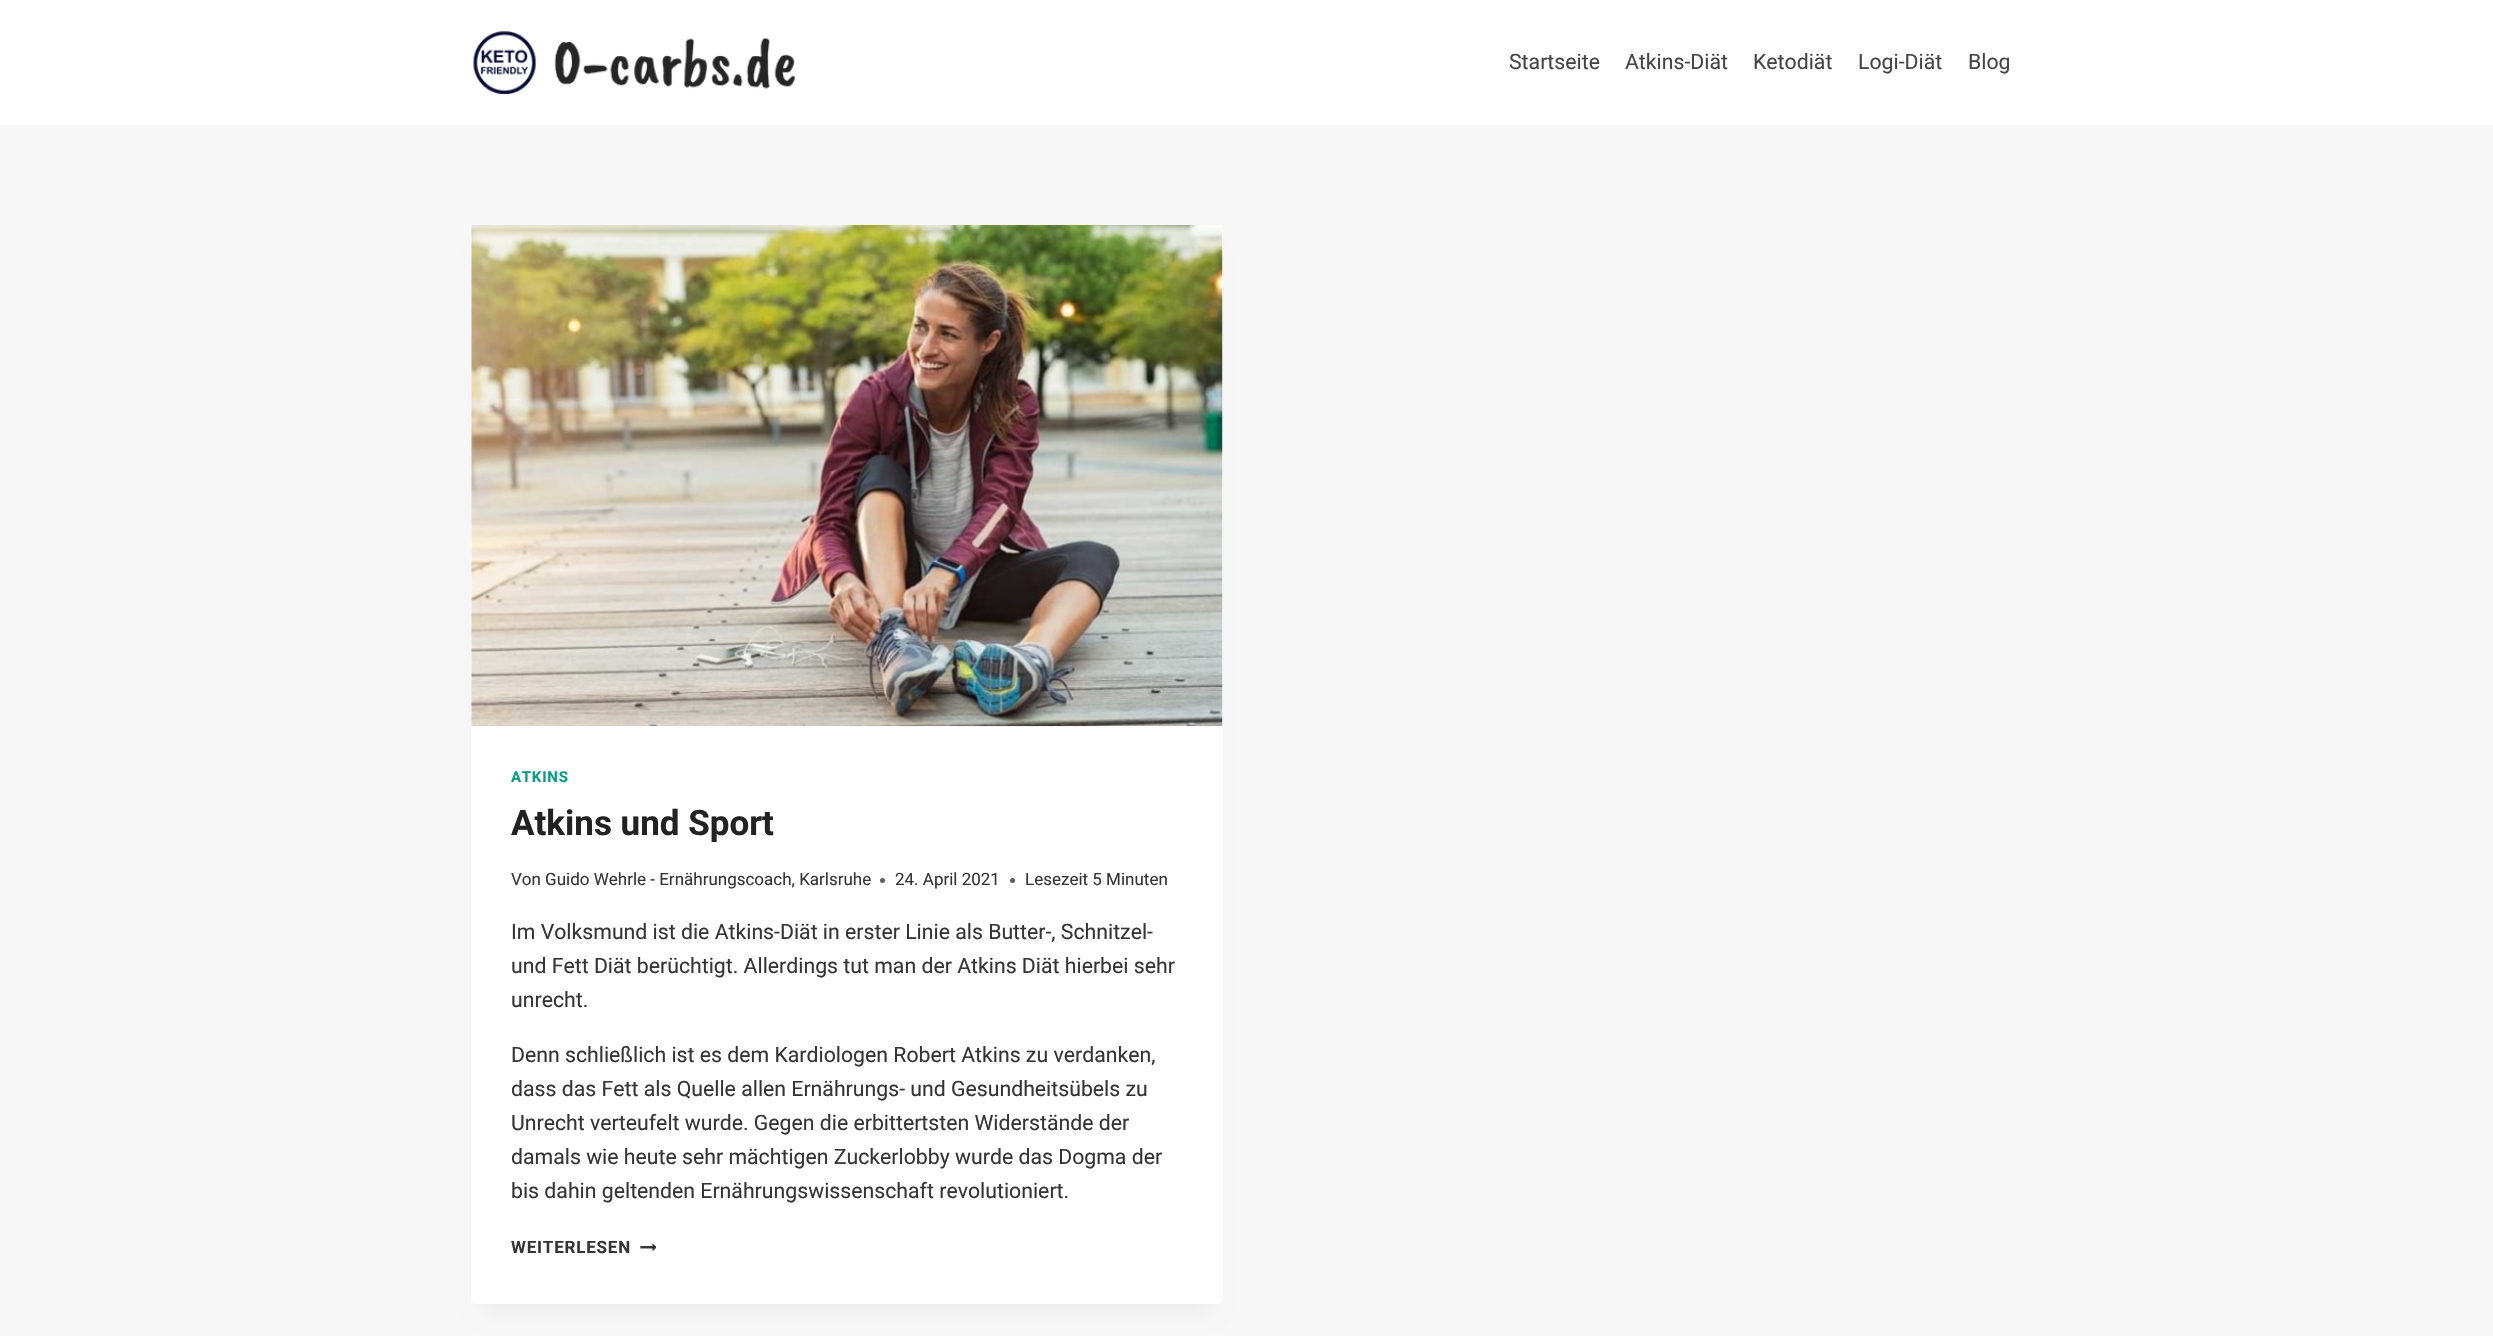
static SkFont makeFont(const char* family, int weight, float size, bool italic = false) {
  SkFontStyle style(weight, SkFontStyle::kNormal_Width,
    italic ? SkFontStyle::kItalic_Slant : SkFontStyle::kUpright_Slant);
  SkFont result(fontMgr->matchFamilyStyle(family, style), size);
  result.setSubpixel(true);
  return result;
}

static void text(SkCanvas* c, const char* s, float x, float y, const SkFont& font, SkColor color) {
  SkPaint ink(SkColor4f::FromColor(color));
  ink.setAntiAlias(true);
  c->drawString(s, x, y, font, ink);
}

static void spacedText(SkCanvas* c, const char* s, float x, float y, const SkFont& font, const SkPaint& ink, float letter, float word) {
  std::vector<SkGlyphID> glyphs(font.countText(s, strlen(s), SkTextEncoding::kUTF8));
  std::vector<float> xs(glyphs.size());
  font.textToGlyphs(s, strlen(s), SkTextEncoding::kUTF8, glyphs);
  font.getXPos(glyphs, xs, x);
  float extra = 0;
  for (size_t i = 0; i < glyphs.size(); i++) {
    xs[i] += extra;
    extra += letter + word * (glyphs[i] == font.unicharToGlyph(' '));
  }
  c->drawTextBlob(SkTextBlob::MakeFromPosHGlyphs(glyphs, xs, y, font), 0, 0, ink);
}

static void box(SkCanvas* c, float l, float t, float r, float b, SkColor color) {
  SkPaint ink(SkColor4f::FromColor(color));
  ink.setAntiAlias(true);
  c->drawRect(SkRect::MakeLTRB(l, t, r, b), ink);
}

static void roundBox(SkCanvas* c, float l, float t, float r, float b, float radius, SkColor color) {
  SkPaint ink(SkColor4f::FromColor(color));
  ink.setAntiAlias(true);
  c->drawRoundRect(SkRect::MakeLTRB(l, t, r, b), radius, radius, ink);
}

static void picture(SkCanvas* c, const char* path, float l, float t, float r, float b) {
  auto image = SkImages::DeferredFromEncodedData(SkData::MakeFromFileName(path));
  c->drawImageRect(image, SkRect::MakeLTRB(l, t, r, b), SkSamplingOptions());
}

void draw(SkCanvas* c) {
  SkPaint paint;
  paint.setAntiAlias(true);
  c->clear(0xfff7f7f7);
  box(c, 0, 0, 2493, 125, 0xffffffff);
  picture(c, "img_01.png", 473, 31, 796, 95);
  SkFont face1 = makeFont("Roboto", 400, 21.25f);
  text(c, "Startseite", 1509, 69, face1, 0xff454545);
  text(c, "Atkins-Diät", 1625, 69, face1, 0xff454545);
  text(c, "Ketodiät", 1753, 69, face1, 0xff454545);
  text(c, "Logi-Diät", 1858, 69, face1, 0xff454545);
  text(c, "Blog", 1968, 69, face1, 0xff454545);
  paint.setColor(0x0d000000);
  paint.setMaskFilter(SkMaskFilter::MakeBlur(kNormal_SkBlurStyle, 9.5f));
  c->drawRect(SkRect::MakeLTRB(484, 256, 1210, 1310), paint);
  paint.setMaskFilter(nullptr);
  roundBox(c, 471, 225, 1223, 1304, 5, 0xffffffff);
  picture(c, "img_02.png", 471, 225, 1223, 727);
  SkFont face2 = makeFont("Roboto", 700, 15);
  paint.setColor(0xff049f82);
  spacedText(c, "ATKINS", 511, 782, face2, paint, 0.75f, 0);
  SkFont face3 = makeFont("Roboto", 700, 35);
  text(c, "Atkins und Sport", 511, 835, face3, 0xff222222);
  SkFont face4 = makeFont("Roboto", 400, 17);
  text(c, "Von Guido Wehrle - Ernährungscoach, Karlsruhe", 511, 885, face4, 0xff353535);
  paint.setColor(0xff5d5d5d);
  c->drawCircle(882.5f, 880.5f, 2.5f, paint);
  text(c, "24. April 2021", 895, 885, face4, 0xff353535);
  c->drawCircle(1012.5f, 880.5f, 2.5f, paint);
  text(c, "Lesezeit 5 Minuten", 1025, 885, face4, 0xff353535);
  text(c, "Im Volksmund ist die Atkins-Diät in erster Linie als Butter-, Schnitzel-", 511, 939, face1, 0xff353535);
  text(c, "und Fett Diät berüchtigt. Allerdings tut man der Atkins Diät hierbei sehr", 511, 973, face1, 0xff353535);
  text(c, "unrecht.", 511, 1007, face1, 0xff353535);
  text(c, "Denn schließlich ist es dem Kardiologen Robert Atkins zu verdanken,", 511, 1062, face1, 0xff353535);
  text(c, "dass das Fett als Quelle allen Ernährungs- und Gesundheitsübels zu", 511, 1096, face1, 0xff353535);
  text(c, "Unrecht verteufelt wurde. Gegen die erbittertsten Widerstände der", 511, 1130, face1, 0xff353535);
  text(c, "damals wie heute sehr mächtigen Zuckerlobby wurde das Dogma der", 511, 1164, face1, 0xff353535);
  text(c, "bis dahin geltenden Ernährungswissenschaft revolutioniert.", 511, 1198, face1, 0xff353535);
  SkFont face5 = makeFont("Roboto", 700, 17);
  paint.setColor(0xff353535);
  spacedText(c, "WEITERLESEN", 511, 1253, face5, paint, 0.8f, 0);
  picture(c, "img_03.png", 640, 1243, 656, 1251);
}
